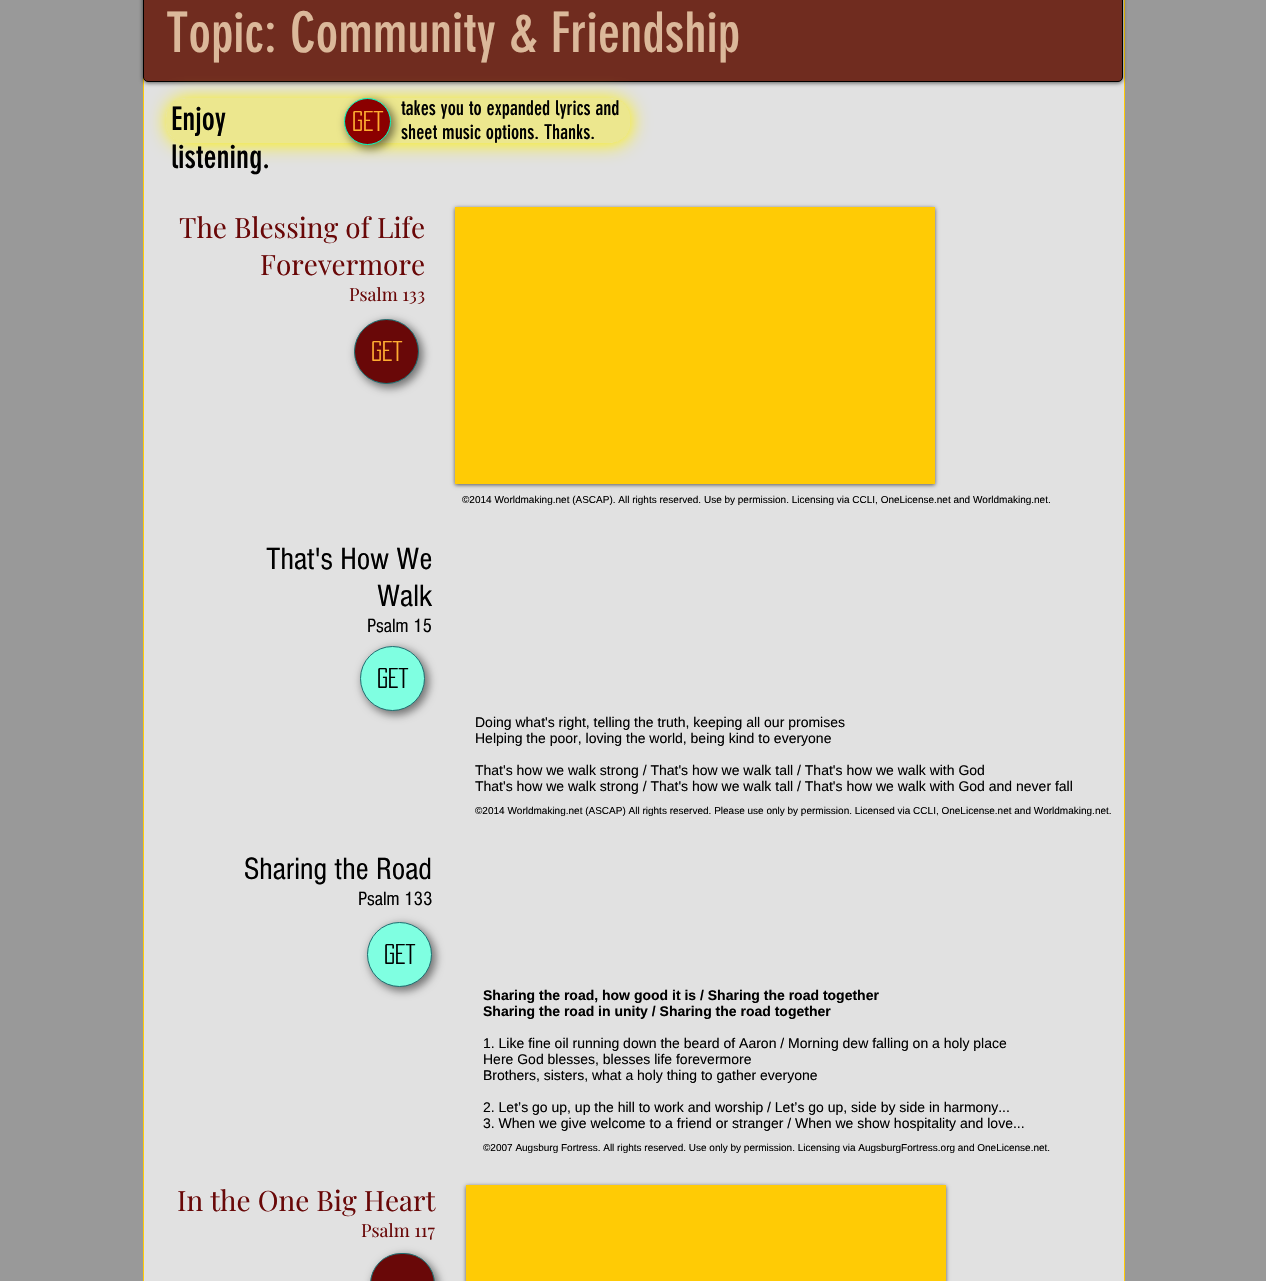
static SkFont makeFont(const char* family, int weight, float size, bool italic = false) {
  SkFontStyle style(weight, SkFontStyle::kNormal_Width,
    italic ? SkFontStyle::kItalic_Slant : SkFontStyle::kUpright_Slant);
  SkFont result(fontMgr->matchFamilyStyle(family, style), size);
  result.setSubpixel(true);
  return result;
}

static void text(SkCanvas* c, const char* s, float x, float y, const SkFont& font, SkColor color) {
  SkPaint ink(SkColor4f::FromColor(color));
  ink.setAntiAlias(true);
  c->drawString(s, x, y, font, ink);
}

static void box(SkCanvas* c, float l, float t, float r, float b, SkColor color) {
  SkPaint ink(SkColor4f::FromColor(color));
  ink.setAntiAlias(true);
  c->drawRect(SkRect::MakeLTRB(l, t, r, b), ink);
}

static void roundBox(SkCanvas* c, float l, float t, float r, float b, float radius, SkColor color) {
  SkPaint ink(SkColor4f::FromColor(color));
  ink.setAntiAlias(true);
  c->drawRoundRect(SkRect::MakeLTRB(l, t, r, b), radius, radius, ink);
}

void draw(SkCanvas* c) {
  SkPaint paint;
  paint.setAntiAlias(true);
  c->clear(0xff999999);
  paint.setColor(0xffe1e1e1);
  c->drawRect(SkRect::MakeLTRB(143.5f, -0.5f, 1124.5f, 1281.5f), paint);
  paint.setStyle(SkPaint::kStroke_Style);
  paint.setStrokeWidth(1);
  paint.setColor(0xffffcb05);
  c->drawRect(SkRect::MakeLTRB(143.5f, -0.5f, 1124.5f, 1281.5f), paint);
  paint.setStyle(SkPaint::kFill_Style);
  paint.setColor(0x99000000);
  paint.setMaskFilter(SkMaskFilter::MakeBlur(kNormal_SkBlurStyle, 2));
  c->drawRoundRect(SkRect::MakeLTRB(143, -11, 1123, 83), 5, 5, paint);
  paint.setMaskFilter(nullptr);
  paint.setColor(0xff702c1f);
  c->drawRoundRect(SkRect::MakeLTRB(143.5f, -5.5f, 1122.5f, 81.5f), 4.5f, 4.5f, paint);
  paint.setStyle(SkPaint::kStroke_Style);
  paint.setColor(0xff000000);
  c->drawRoundRect(SkRect::MakeLTRB(143.5f, -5.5f, 1122.5f, 81.5f), 4.5f, 4.5f, paint);
  SkFont face1 = makeFont("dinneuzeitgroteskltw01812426", 400, 55);
  text(c, "Topic: Community & Friendship", 166, 52, face1, 0xffdbb89a);
  c->save();
  c->clipPath(SkPathBuilder(SkPathFillType::kEvenOdd).moveTo(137, 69).lineTo(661, 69).lineTo(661, 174).lineTo(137, 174).close().moveTo(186, 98).lineTo(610, 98).cubicTo(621, 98, 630, 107, 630, 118).lineTo(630, 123).cubicTo(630, 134, 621, 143, 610, 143).lineTo(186, 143).cubicTo(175, 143, 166, 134, 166, 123).lineTo(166, 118).cubicTo(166, 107, 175, 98, 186, 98).close().detach(), true);
  paint.setStyle(SkPaint::kFill_Style);
  paint.setColor(0xfffff200);
  paint.setMaskFilter(SkMaskFilter::MakeBlur(kNormal_SkBlurStyle, 9.5f));
  c->drawRoundRect(SkRect::MakeLTRB(167, 99, 631, 144), 20, 20, paint);
  paint.setMaskFilter(nullptr);
  c->restore();
  roundBox(c, 166, 98, 630, 143, 20, 0x5efff200);
  SkFont face2 = makeFont("dinneuzeitgroteskltw01812426", 400, 32);
  text(c, "Enjoy", 171, 130, face2, 0xff000000);
  text(c, "listening.", 171, 168, face2, 0xff000000);
  paint.setColor(0x7d000000);
  paint.setMaskFilter(SkMaskFilter::MakeBlur(kNormal_SkBlurStyle, 4));
  c->drawRoundRect(SkRect::MakeLTRB(346, 100, 395, 149), 24.5f, 24.5f, paint);
  paint.setMaskFilter(nullptr);
  paint.setColor(0xff8b0000);
  c->drawCircle(367.5f, 121.5f, 23, paint);
  paint.setStyle(SkPaint::kStroke_Style);
  paint.setColor(0xff00ffc3);
  c->drawCircle(367.5f, 121.5f, 23, paint);
  SkFont face3 = makeFont("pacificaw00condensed", 400, 25);
  text(c, "GET", 352, 131, face3, 0xffffad31);
  SkFont face4 = makeFont("dinneuzeitgroteskltw01812426", 400, 20);
  text(c, "takes you to expanded lyrics and", 401, 115, face4, 0xff000000);
  text(c, "sheet music options. Thanks.", 401, 139, face4, 0xff000000);
  SkFont face5 = makeFont("Playfair Display", 400, 28);
  text(c, "The Blessing of Life", 179, 238, face5, 0xff690808);
  text(c, "Forevermore", 260, 275, face5, 0xff690808);
  SkFont face6 = makeFont("Playfair Display", 400, 18);
  text(c, "Psalm 133", 349, 301, face6, 0xff690808);
  paint.setStyle(SkPaint::kFill_Style);
  paint.setColor(0x99000000);
  paint.setMaskFilter(SkMaskFilter::MakeBlur(kNormal_SkBlurStyle, 2));
  c->drawRect(SkRect::MakeLTRB(455, 208, 935, 485), paint);
  paint.setMaskFilter(nullptr);
  box(c, 455, 207, 935, 484, 0xffffcb05);
  paint.setColor(0x7d000000);
  paint.setMaskFilter(SkMaskFilter::MakeBlur(kNormal_SkBlurStyle, 4));
  c->drawRoundRect(SkRect::MakeLTRB(356, 321, 423, 388), 33.5f, 33.5f, paint);
  paint.setMaskFilter(nullptr);
  paint.setColor(0xff690808);
  c->drawCircle(386.5f, 351.5f, 32, paint);
  paint.setStyle(SkPaint::kStroke_Style);
  paint.setColor(0xff1e6f71);
  c->drawCircle(386.5f, 351.5f, 32, paint);
  text(c, "GET", 371, 361, face3, 0xffffad31);
  SkFont face7 = makeFont("Liberation Sans", 400, 10);
  text(c, "©2014 Worldmaking.net (ASCAP). All rights reserved. Use by permission. Licensing via CCLI, OneLicense.net and Worldmaking.net.", 462, 503, face7, 0xff000000);
  SkFont face8 = makeFont("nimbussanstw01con", 400, 32);
  text(c, "That's How We", 266, 569, face8, 0xff000000);
  text(c, "Walk", 377, 606, face8, 0xff000000);
  SkFont face9 = makeFont("nimbussanstw01con", 400, 20);
  text(c, "Psalm 15", 367, 632, face9, 0xff000000);
  paint.setStyle(SkPaint::kFill_Style);
  paint.setColor(0x7d000000);
  paint.setMaskFilter(SkMaskFilter::MakeBlur(kNormal_SkBlurStyle, 4));
  c->drawRoundRect(SkRect::MakeLTRB(362, 648, 429, 715), 33.5f, 33.5f, paint);
  paint.setMaskFilter(nullptr);
  paint.setColor(0xff7fffe1);
  c->drawCircle(392.5f, 678.5f, 32, paint);
  paint.setStyle(SkPaint::kStroke_Style);
  paint.setColor(0xff1e6f71);
  c->drawCircle(392.5f, 678.5f, 32, paint);
  text(c, "GET", 377, 688, face3, 0xff000000);
  SkFont face10 = makeFont("Liberation Sans", 400, 14);
  text(c, "Doing what's right, telling the truth, keeping all our promises", 475, 727, face10, 0xff000000);
  text(c, "Helping the poor, loving the world, being kind to everyone", 475, 743, face10, 0xff000000);
  text(c, "That's how we walk strong / That's how we walk tall / That's how we walk with God", 475, 775, face10, 0xff000000);
  text(c, "That's how we walk strong / That's how we walk tall / That's how we walk with God and never fall", 475, 791, face10, 0xff000000);
  text(c, "©2014 Worldmaking.net (ASCAP) All rights reserved. Please use only by permission. Licensed via CCLI, OneLicense.net and Worldmaking.net.", 475, 814, face7, 0xff000000);
  text(c, "Sharing the Road", 244, 879, face8, 0xff000000);
  text(c, "Psalm 133", 358, 905, face9, 0xff000000);
  paint.setStyle(SkPaint::kFill_Style);
  paint.setColor(0x7d000000);
  paint.setMaskFilter(SkMaskFilter::MakeBlur(kNormal_SkBlurStyle, 4));
  c->drawRoundRect(SkRect::MakeLTRB(369, 924, 436, 991), 33.5f, 33.5f, paint);
  paint.setMaskFilter(nullptr);
  paint.setColor(0xff7fffe1);
  c->drawCircle(399.5f, 954.5f, 32, paint);
  paint.setStyle(SkPaint::kStroke_Style);
  paint.setColor(0xff1e6f71);
  c->drawCircle(399.5f, 954.5f, 32, paint);
  text(c, "GET", 384, 964, face3, 0xff000000);
  SkFont face11 = makeFont("Liberation Sans", 700, 14);
  text(c, "Sharing the road, how good it is / Sharing the road together", 483, 1000, face11, 0xff000000);
  text(c, "Sharing the road in unity / Sharing the road together", 483, 1016, face11, 0xff000000);
  text(c, "1. Like fine oil running down the beard of Aaron / Morning dew falling on a holy place", 483, 1048, face10, 0xff000000);
  text(c, "Here God blesses, blesses life forevermore", 483, 1064, face10, 0xff000000);
  text(c, "Brothers, sisters, what a holy thing to gather everyone", 483, 1080, face10, 0xff000000);
  text(c, "2. Let’s go up, up the hill to work and worship / Let’s go up, side by side in harmony...", 483, 1112, face10, 0xff000000);
  text(c, "3. When we give welcome to a friend or stranger / When we show hospitality and love...", 483, 1128, face10, 0xff000000);
  text(c, "©2007 Augsburg Fortress. All rights reserved. Use only by permission. Licensing via AugsburgFortress.org and OneLicense.net.", 483, 1151, face7, 0xff000000);
  text(c, "In the One Big Heart", 177, 1211, face5, 0xff690808);
  text(c, "Psalm 117", 361, 1237, face6, 0xff690808);
  paint.setStyle(SkPaint::kFill_Style);
  paint.setColor(0x99000000);
  paint.setMaskFilter(SkMaskFilter::MakeBlur(kNormal_SkBlurStyle, 2));
  c->drawRect(SkRect::MakeLTRB(466, 1186, 946, 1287), paint);
  paint.setMaskFilter(nullptr);
  box(c, 466, 1185, 946, 1281, 0xffffcb05);
  paint.setColor(0x7d000000);
  paint.setMaskFilter(SkMaskFilter::MakeBlur(kNormal_SkBlurStyle, 4));
  c->drawRoundRect(SkRect::MakeLTRB(372, 1255, 439, 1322), 33.5f, 33.5f, paint);
  paint.setMaskFilter(nullptr);
  paint.setColor(0xff690808);
  c->drawRoundRect(SkRect::MakeLTRB(370.5f, 1253.5f, 434.5f, 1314.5f), 32, 32, paint);
  paint.setStyle(SkPaint::kStroke_Style);
  paint.setColor(0xff1e6f71);
  c->drawRoundRect(SkRect::MakeLTRB(370.5f, 1253.5f, 434.5f, 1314.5f), 32, 32, paint);
}
